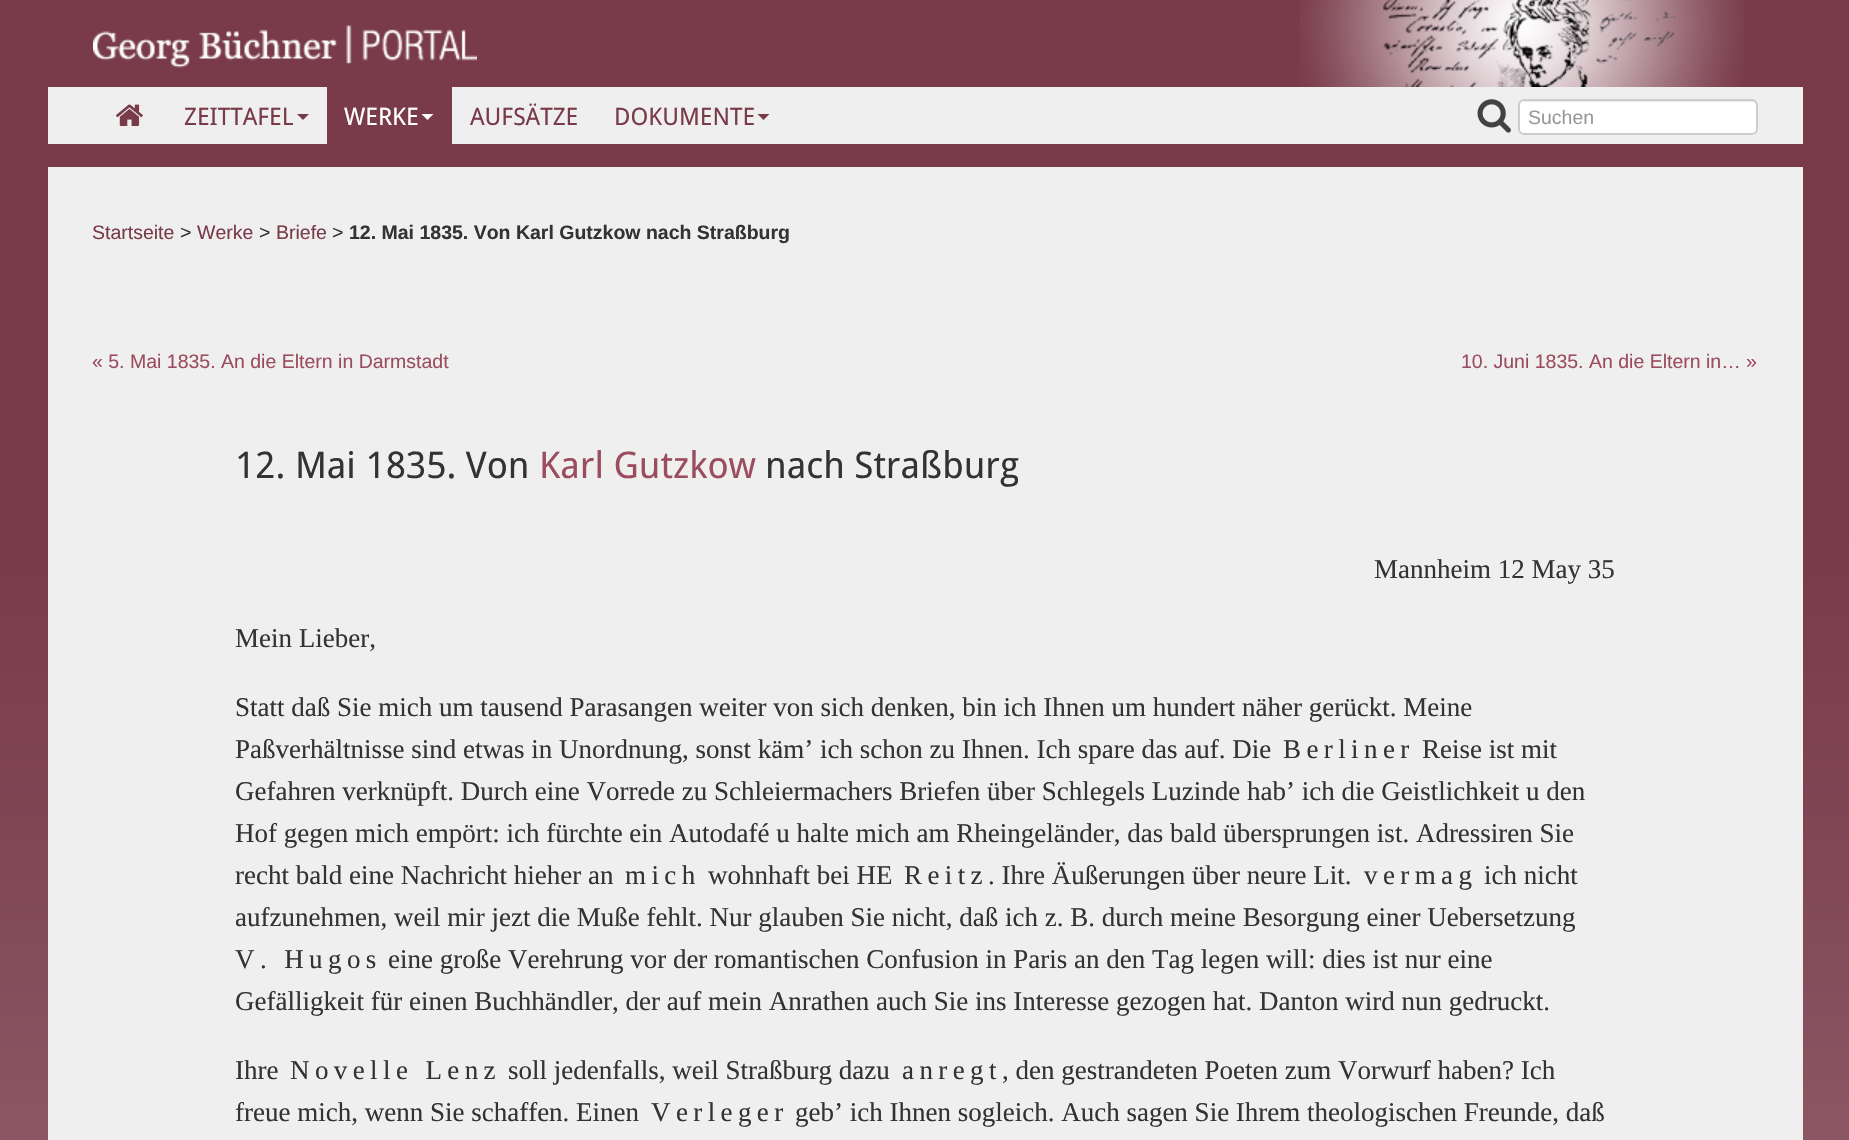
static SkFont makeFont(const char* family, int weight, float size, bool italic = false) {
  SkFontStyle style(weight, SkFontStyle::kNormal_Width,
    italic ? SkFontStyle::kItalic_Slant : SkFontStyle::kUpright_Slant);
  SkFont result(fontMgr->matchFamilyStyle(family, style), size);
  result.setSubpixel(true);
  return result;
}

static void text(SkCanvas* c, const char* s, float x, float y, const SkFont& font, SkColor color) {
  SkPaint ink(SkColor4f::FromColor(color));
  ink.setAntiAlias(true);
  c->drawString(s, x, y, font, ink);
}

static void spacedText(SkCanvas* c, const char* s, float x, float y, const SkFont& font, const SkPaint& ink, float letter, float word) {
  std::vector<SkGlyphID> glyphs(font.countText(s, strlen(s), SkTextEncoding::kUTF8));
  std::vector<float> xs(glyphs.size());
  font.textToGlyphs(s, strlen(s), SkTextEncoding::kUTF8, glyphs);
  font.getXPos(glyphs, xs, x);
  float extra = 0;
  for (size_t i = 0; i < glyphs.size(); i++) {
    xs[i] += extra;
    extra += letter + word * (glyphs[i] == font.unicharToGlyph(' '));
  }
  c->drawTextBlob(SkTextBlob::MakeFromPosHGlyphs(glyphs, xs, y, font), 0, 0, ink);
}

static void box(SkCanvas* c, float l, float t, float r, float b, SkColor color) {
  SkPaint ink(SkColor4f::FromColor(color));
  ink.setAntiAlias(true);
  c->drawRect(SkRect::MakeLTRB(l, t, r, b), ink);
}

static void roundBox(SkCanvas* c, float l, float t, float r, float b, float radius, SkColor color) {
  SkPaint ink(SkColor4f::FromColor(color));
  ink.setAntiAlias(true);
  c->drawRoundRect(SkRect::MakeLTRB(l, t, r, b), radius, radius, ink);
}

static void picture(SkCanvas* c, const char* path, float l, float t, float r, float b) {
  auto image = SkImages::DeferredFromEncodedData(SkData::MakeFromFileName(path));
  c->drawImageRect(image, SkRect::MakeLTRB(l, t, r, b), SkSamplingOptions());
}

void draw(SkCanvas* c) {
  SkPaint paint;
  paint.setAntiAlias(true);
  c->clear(0xffffffff);
  picture(c, "img_01.png", 0, 0, 1849, 1140);
  picture(c, "img_02.png", 1300, 0, 1744, 87);
  picture(c, "img_03.png", 93, 25, 477, 68);
  box(c, 48, 87, 1803, 144, 0xffefefef);
  picture(c, "img_04.png", 116, 104, 143, 126);
  SkFont face1 = makeFont("Droid Sans", 400, 24);
  text(c, "ZEITTAFEL", 184, 125, face1, 0xff793b4a);
  paint.setColor(0xff793b4a);
  c->drawPath(SkPathBuilder().moveTo(297, 114).lineTo(309, 114).lineTo(303, 120).close().detach(), paint);
  box(c, 327, 87, 452, 144, 0xff793b4a);
  text(c, "WERKE", 344, 125, face1, 0xffffffff);
  paint.setColor(0xffffffff);
  c->drawPath(SkPathBuilder().moveTo(421.5f, 114).lineTo(433.5f, 114).lineTo(427.5f, 120).close().detach(), paint);
  text(c, "AUFSÄTZE", 470, 125, face1, 0xff793b4a);
  text(c, "DOKUMENTE", 614, 125, face1, 0xff793b4a);
  paint.setColor(0xff793b4a);
  c->drawPath(SkPathBuilder().moveTo(757.5f, 114).lineTo(769.5f, 114).lineTo(763.5f, 120).close().detach(), paint);
  picture(c, "img_05.png", 1477, 99, 1511, 133);
  roundBox(c, 1518, 99, 1758, 135, 6, 0xffffffff);
  paint.setColor(0xffececec);
  c->drawPath(SkPathBuilder().moveTo(1524, 102).lineTo(1752, 102).cubicTo(1754, 102, 1756, 104, 1756, 106).lineTo(1756, 130).lineTo(1755, 133).cubicTo(1756, 132, 1757, 130, 1757, 129).lineTo(1757, 106).cubicTo(1757, 103, 1755, 101, 1752, 101).lineTo(1525, 101).cubicTo(1522, 101, 1520, 103, 1520, 106).cubicTo(1520, 104, 1522, 102, 1524, 102).close().detach(), paint);
  paint.setStyle(SkPaint::kStroke_Style);
  paint.setStrokeWidth(2);
  paint.setColor(0xffcccccc);
  c->drawRoundRect(SkRect::MakeLTRB(1519, 100, 1757, 134), 5, 5, paint);
  SkFont face2 = makeFont("Liberation Sans", 400, 19.5f);
  text(c, "Suchen", 1528, 124, face2, 0xff999999);
  box(c, 48, 167, 1803, 1140, 0xffefefef);
  text(c, "Startseite", 92, 239, face2, 0xff793b4a);
  text(c, ">", 180, 239, face2, 0xff333333);
  text(c, "Werke", 197, 239, face2, 0xff793b4a);
  text(c, ">", 259, 239, face2, 0xff333333);
  text(c, "Briefe", 276, 239, face2, 0xff793b4a);
  text(c, ">", 332, 239, face2, 0xff333333);
  SkFont face3 = makeFont("Liberation Sans", 700, 19.5f);
  text(c, "12. Mai 1835. Von Karl Gutzkow nach Straßburg", 349, 239, face3, 0xff333333);
  text(c, "« 5. Mai 1835. An die Eltern in Darmstadt", 92, 368, face2, 0xff9b4c5f);
  text(c, "10. Juni 1835. An die Eltern in… »", 1461, 368, face2, 0xff9b4c5f);
  SkFont face4 = makeFont("Droid Sans", 400, 36.75f);
  text(c, "12. Mai 1835. Von", 235, 478, face4, 0xff333333);
  text(c, "Karl Gutzkow", 539, 478, face4, 0xff9b4c5f);
  text(c, "nach Straßburg", 765, 478, face4, 0xff333333);
  SkFont face5 = makeFont("Liberation Serif", 400, 27);
  text(c, "Mannheim 12 May 35", 1374, 578, face5, 0xff333333);
  text(c, "Mein Lieber,", 235, 647, face5, 0xff333333);
  text(c, "Statt daß Sie mich um tausend Parasangen weiter von sich denken, bin ich Ihnen um hundert näher gerückt. Meine", 235, 716, face5, 0xff333333);
  text(c, "Paßverhältnisse sind etwas in Unordnung, sonst käm’ ich schon zu Ihnen. Ich spare das auf. Die", 235, 758, face5, 0xff333333);
  paint.setStyle(SkPaint::kFill_Style);
  paint.setColor(0xff333333);
  spacedText(c, "Berliner", 1283, 758, face5, paint, 5.4f, 0);
  text(c, "Reise ist mit", 1422, 758, face5, 0xff333333);
  text(c, "Gefahren verknüpft. Durch eine Vorrede zu Schleiermachers Briefen über Schlegels Luzinde hab’ ich die Geistlichkeit u den", 235, 800, face5, 0xff333333);
  text(c, "Hof gegen mich empört: ich fürchte ein Autodafé u halte mich am Rheingeländer, das bald übersprungen ist. Adressiren Sie", 235, 842, face5, 0xff333333);
  text(c, "recht bald eine Nachricht hieher an", 235, 884, face5, 0xff333333);
  spacedText(c, "mich", 625, 884, face5, paint, 5.4f, 0);
  text(c, "wohnhaft bei HE", 708, 884, face5, 0xff333333);
  spacedText(c, "Reitz", 904, 884, face5, paint, 5.4f, 0);
  text(c, ". Ihre Äußerungen über neure Lit.", 988, 884, face5, 0xff333333);
  spacedText(c, "vermag", 1364, 884, face5, paint, 5.4f, 0);
  text(c, "ich nicht", 1484, 884, face5, 0xff333333);
  text(c, "aufzunehmen, weil mir jezt die Muße fehlt. Nur glauben Sie nicht, daß ich z. B. durch meine Besorgung einer Uebersetzung", 235, 926, face5, 0xff333333);
  spacedText(c, "V. Hugos", 235, 968, face5, paint, 5.4f, 0);
  text(c, "eine große Verehrung vor der romantischen Confusion in Paris an den Tag legen will: dies ist nur eine", 388, 968, face5, 0xff333333);
  text(c, "Gefälligkeit für einen Buchhändler, der auf mein Anrathen auch Sie ins Interesse gezogen hat. Danton wird nun gedruckt.", 235, 1010, face5, 0xff333333);
  text(c, "Ihre", 235, 1079, face5, 0xff333333);
  spacedText(c, "Novelle Lenz", 290, 1079, face5, paint, 5.4f, 0);
  text(c, "soll jedenfalls, weil Straßburg dazu", 508, 1079, face5, 0xff333333);
  spacedText(c, "anregt", 902, 1079, face5, paint, 5.4f, 0);
  text(c, ", den gestrandeten Poeten zum Vorwurf haben? Ich", 1002, 1079, face5, 0xff333333);
  text(c, "freue mich, wenn Sie schaffen. Einen", 235, 1121, face5, 0xff333333);
  spacedText(c, "Verleger", 651, 1121, face5, paint, 5.4f, 0);
  text(c, "geb’ ich Ihnen sogleich. Auch sagen Sie Ihrem theologischen Freunde, daß", 795, 1121, face5, 0xff333333);
}
